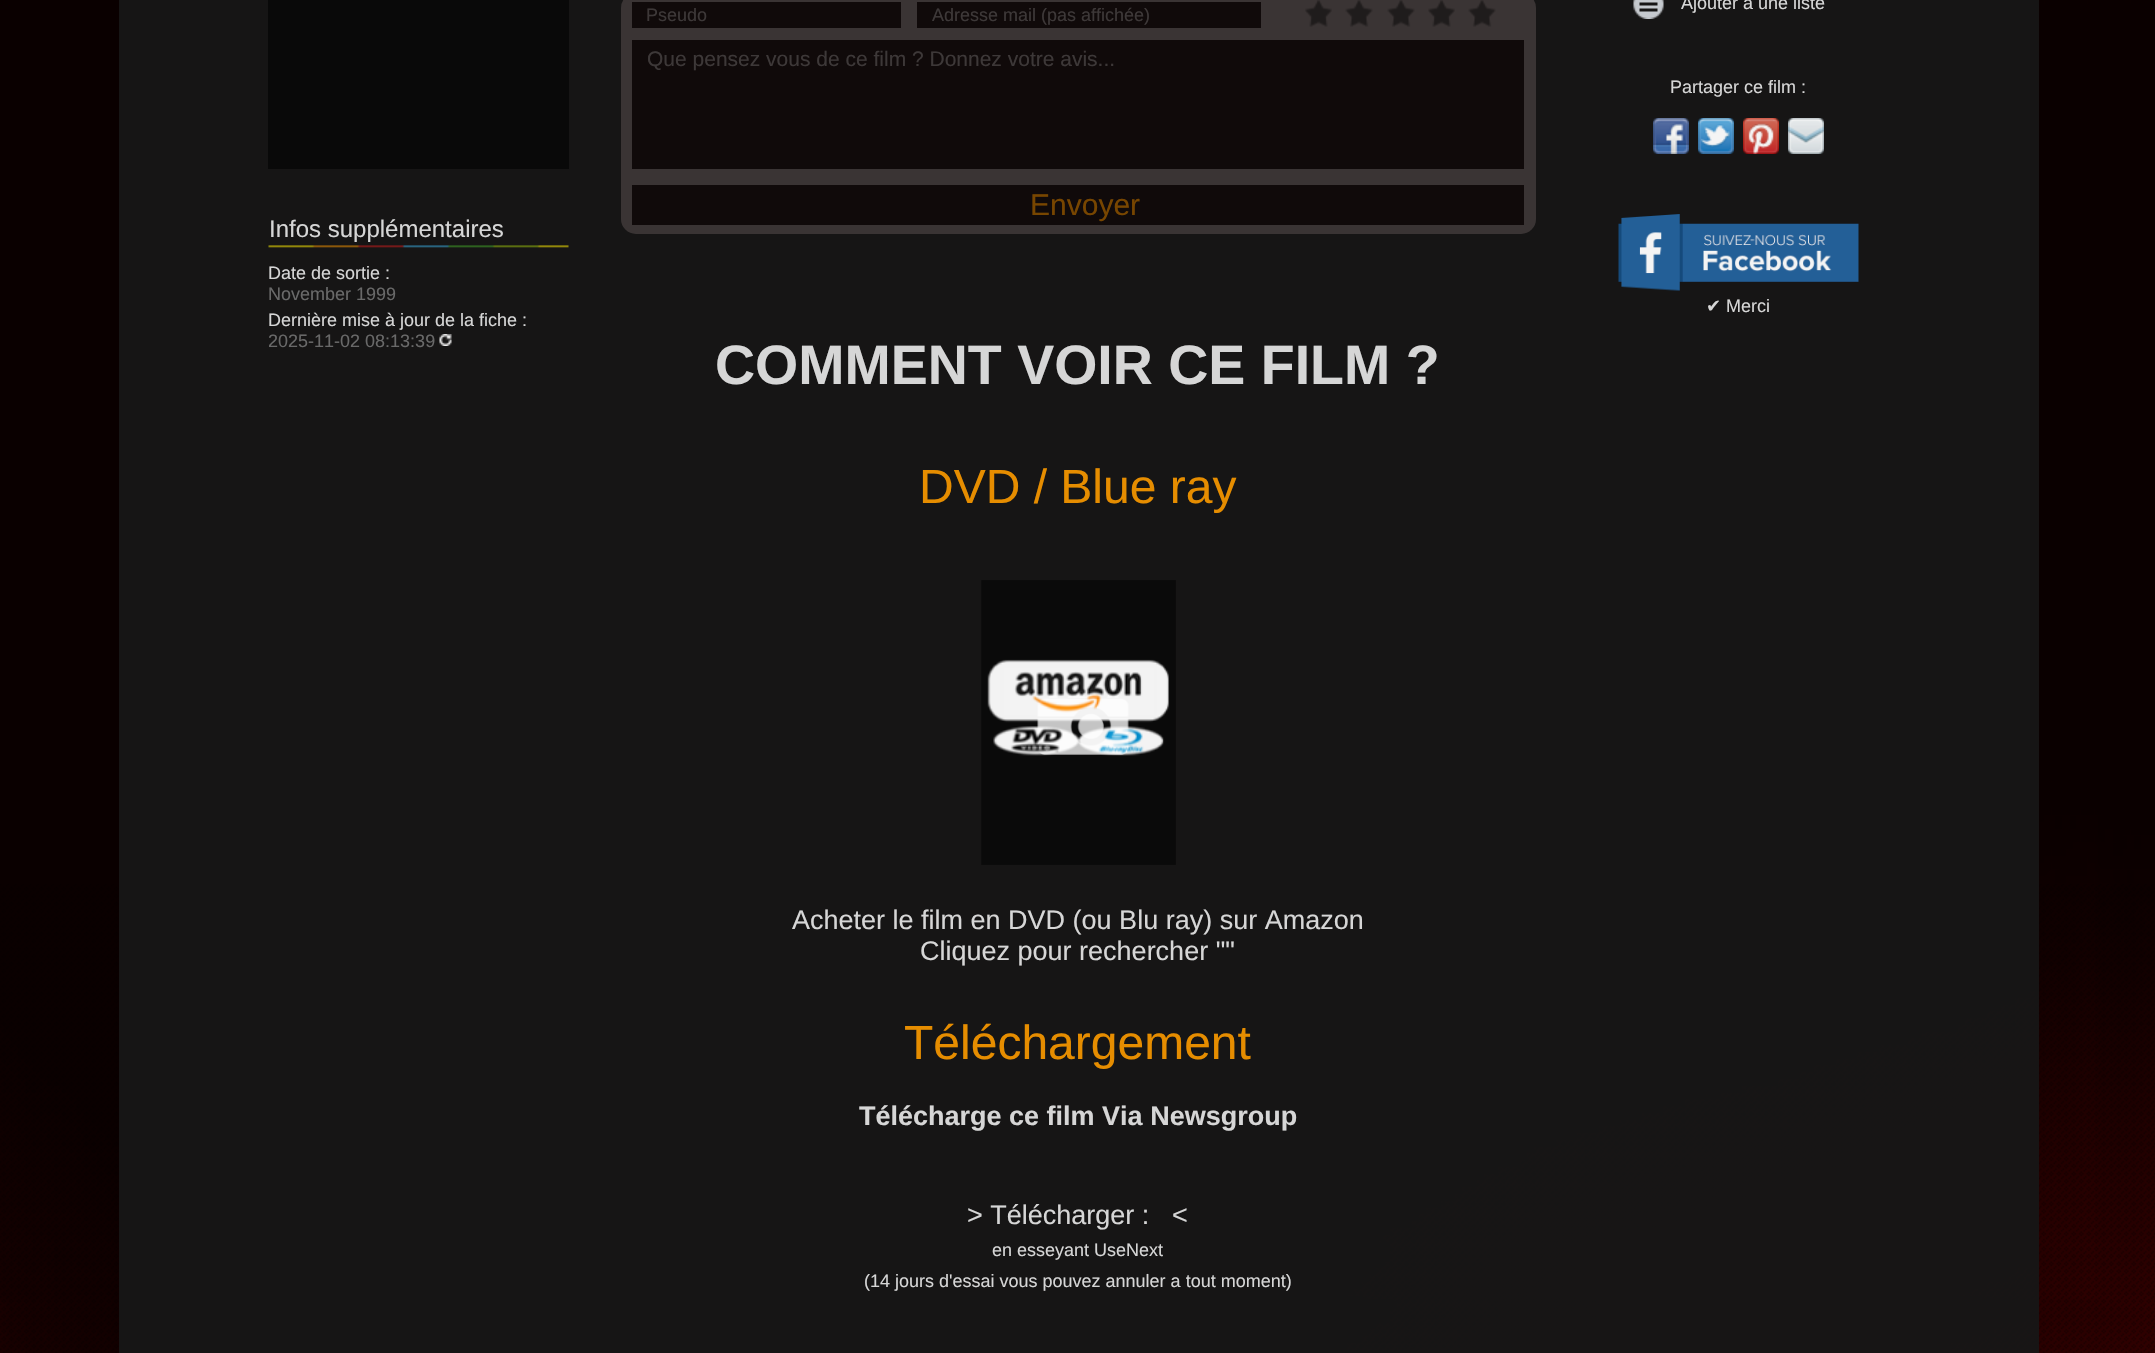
static SkFont makeFont(const char* family, int weight, float size, bool italic = false) {
  SkFontStyle style(weight, SkFontStyle::kNormal_Width,
    italic ? SkFontStyle::kItalic_Slant : SkFontStyle::kUpright_Slant);
  SkFont result(fontMgr->matchFamilyStyle(family, style), size);
  result.setSubpixel(true);
  return result;
}

static void text(SkCanvas* c, const char* s, float x, float y, const SkFont& font, SkColor color) {
  SkPaint ink(SkColor4f::FromColor(color));
  ink.setAntiAlias(true);
  c->drawString(s, x, y, font, ink);
}

static void box(SkCanvas* c, float l, float t, float r, float b, SkColor color) {
  SkPaint ink(SkColor4f::FromColor(color));
  ink.setAntiAlias(true);
  c->drawRect(SkRect::MakeLTRB(l, t, r, b), ink);
}

static void roundBox(SkCanvas* c, float l, float t, float r, float b, float radius, SkColor color) {
  SkPaint ink(SkColor4f::FromColor(color));
  ink.setAntiAlias(true);
  c->drawRoundRect(SkRect::MakeLTRB(l, t, r, b), radius, radius, ink);
}

static void picture(SkCanvas* c, const char* path, float l, float t, float r, float b) {
  auto image = SkImages::DeferredFromEncodedData(SkData::MakeFromFileName(path));
  c->drawImageRect(image, SkRect::MakeLTRB(l, t, r, b), SkSamplingOptions());
}

void draw(SkCanvas* c) {
  SkPaint paint;
  paint.setAntiAlias(true);
  c->clear(0xffffffff);
  picture(c, "img_01.png", 0, 0, 2155, 1353);
  picture(c, "img_14.png", 0, 884, 2155, 1353);
  box(c, 119, 0, 2039, 1353, 0xf2161616);
  box(c, 268, 0, 569, 169, 0xff090909);
  SkFont face1 = makeFont("Liberation Sans", 400, 24);
  text(c, "Infos supplémentaires", 269, 237, face1, 0xffd6d6d6);
  picture(c, "img_02.png", 268, 245, 569, 248);
  SkFont face2 = makeFont("Liberation Sans", 400, 18);
  text(c, "Date de sortie :", 268, 279, face2, 0xffd6d6d6);
  text(c, "November 1999", 268, 300, face2, 0xff696969);
  text(c, "Dernière mise à jour de la fiche :", 268, 326, face2, 0xffd6d6d6);
  c->save();
  c->clipRect(SkRect::MakeLTRB(269, 216, 569, 351));
  text(c, "2025-11-02 08:13:39", 268, 347, face2, 0xff696969);
  c->restore();
  picture(c, "img_03.png", 439, 334, 452, 346);
  roundBox(c, 621, -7, 1536, 234, 15, 0xff3a3434);
  box(c, 632, 2, 901, 28, 0xff100a0a);
  text(c, "Pseudo", 646, 21, face2, 0xff3d3838);
  box(c, 917, 2, 1261, 28, 0xff100a0a);
  text(c, "Adresse mail (pas affichée)", 932, 21, face2, 0xff3d3838);
  picture(c, "img_04.png", 1305, 0, 1332, 27);
  picture(c, "img_05.png", 1345, 0, 1373, 27);
  picture(c, "img_05.png", 1387, 0, 1415, 27);
  picture(c, "img_04.png", 1428, 0, 1455, 27);
  picture(c, "img_05.png", 1468, 0, 1496, 27);
  box(c, 632, 40, 1524, 169, 0xff100a0a);
  SkFont face3 = makeFont("Liberation Sans", 400, 21);
  text(c, "Que pensez vous de ce film ? Donnez votre avis...", 647, 66, face3, 0xff3d3838);
  box(c, 632, 185, 1524, 225, 0xff100a0a);
  SkFont face4 = makeFont("Liberation Sans", 400, 30);
  text(c, "Envoyer", 1030, 215, face4, 0xff784600);
  SkFont face5 = makeFont("Liberation Sans", 700, 55.5f);
  text(c, "COMMENT VOIR CE FILM ?", 715, 384, face5, 0xffd6d6d6);
  SkFont face6 = makeFont("Liberation Sans", 400, 48);
  text(c, "DVD / Blue ray", 919, 503, face6, 0xffe68d00);
  picture(c, "img_06.png", 981, 580, 1176, 865);
  picture(c, "img_07.png", 987, 659, 1169, 756);
  SkFont face7 = makeFont("Liberation Sans", 400, 27);
  text(c, "Acheter le film en DVD (ou Blu ray) sur Amazon", 792, 929, face7, 0xffd6d6d6);
  text(c, "Cliquez pour rechercher \"\"", 920, 960, face7, 0xffd6d6d6);
  text(c, "Téléchargement", 904, 1059, face6, 0xffe68d00);
  SkFont face8 = makeFont("Liberation Sans", 700, 27);
  text(c, "Télécharge ce film Via Newsgroup", 859, 1125, face8, 0xffd6d6d6);
  text(c, "> Télécharger :", 967, 1224, face7, 0xffd6d6d6);
  text(c, "<", 1172, 1224, face7, 0xffd6d6d6);
  text(c, "en esseyant UseNext", 992, 1256, face2, 0xffd6d6d6);
  text(c, "(14 jours d'essai vous pouvez annuler a tout moment)", 864, 1287, face2, 0xffd6d6d6);
  picture(c, "img_08.png", 1633, 0, 1664, 19);
  text(c, "Ajouter a une liste", 1681, 9, face2, 0xffd6d6d6);
  text(c, "Partager ce film :", 1670, 93, face2, 0xffd6d6d6);
  picture(c, "img_09.png", 1653, 118, 1689, 154);
  picture(c, "img_10.png", 1698, 118, 1734, 154);
  picture(c, "img_11.png", 1743, 118, 1779, 154);
  picture(c, "img_12.png", 1788, 118, 1824, 154);
  picture(c, "img_13.png", 1618, 214, 1859, 291);
  SkFont face9 = makeFont("DejaVu Sans", 400, 18);
  text(c, "✔", 1706, 312, face9, 0xffd6d6d6);
  text(c, "Merci", 1726, 312, face2, 0xffd6d6d6);
}
